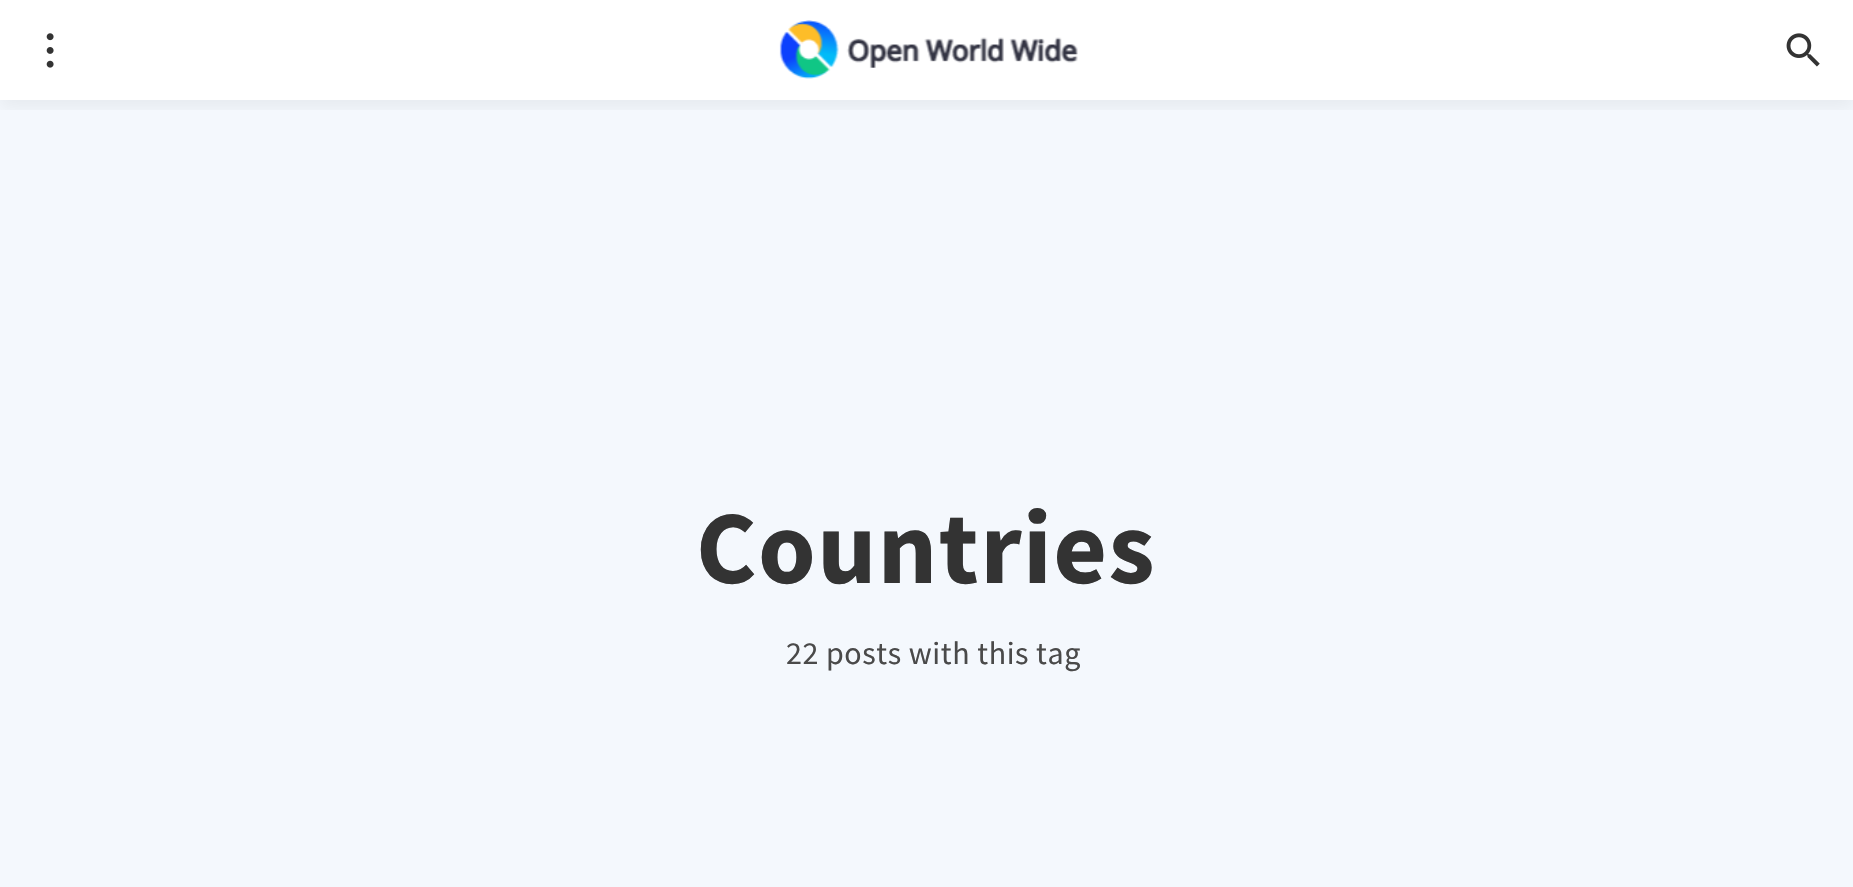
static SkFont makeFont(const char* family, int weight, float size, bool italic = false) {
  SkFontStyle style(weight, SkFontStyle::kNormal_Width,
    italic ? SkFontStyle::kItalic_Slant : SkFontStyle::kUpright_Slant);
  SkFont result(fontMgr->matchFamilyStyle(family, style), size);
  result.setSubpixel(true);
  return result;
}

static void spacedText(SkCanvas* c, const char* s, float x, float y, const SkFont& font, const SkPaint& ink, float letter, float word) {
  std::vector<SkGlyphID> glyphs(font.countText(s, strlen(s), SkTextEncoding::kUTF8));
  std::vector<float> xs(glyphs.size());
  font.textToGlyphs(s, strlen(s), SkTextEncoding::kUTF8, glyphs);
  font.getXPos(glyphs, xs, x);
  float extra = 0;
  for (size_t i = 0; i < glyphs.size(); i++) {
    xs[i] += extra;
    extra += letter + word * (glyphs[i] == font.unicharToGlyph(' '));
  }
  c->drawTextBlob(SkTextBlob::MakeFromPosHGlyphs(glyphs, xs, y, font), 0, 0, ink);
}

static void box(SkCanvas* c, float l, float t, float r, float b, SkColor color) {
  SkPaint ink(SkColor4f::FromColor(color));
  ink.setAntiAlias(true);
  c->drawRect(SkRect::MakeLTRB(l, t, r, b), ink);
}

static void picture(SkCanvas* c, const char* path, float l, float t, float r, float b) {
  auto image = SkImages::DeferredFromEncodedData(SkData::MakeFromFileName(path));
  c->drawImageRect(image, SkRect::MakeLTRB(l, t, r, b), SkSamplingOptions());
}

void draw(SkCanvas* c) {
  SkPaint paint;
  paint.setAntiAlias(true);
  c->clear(0xffffffff);
  box(c, 0, 100, 1853, 887, 0xfff4f8fd);
  c->save();
  c->clipRect(SkRect::MakeLTRB(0, 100, 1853, 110));
  paint.setColor(0x0d000000);
  paint.setMaskFilter(SkMaskFilter::MakeBlur(kNormal_SkBlurStyle, 8));
  c->drawRect(SkRect::MakeLTRB(0, 8, 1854, 108), paint);
  paint.setMaskFilter(nullptr);
  c->restore();
  picture(c, "img_01.png", 46, 33, 54, 68);
  picture(c, "img_02.png", 779, 20, 1078, 79);
  picture(c, "img_03.png", 1786, 33, 1820, 67);
  SkFont face1 = makeFont("Source Sans Pro", 700, 104);
  paint.setColor(0xff333333);
  spacedText(c, "Countries", 696, 583, face1, paint, 1.5f, 0);
  SkFont face2 = makeFont("Source Sans Pro", 400, 32);
  paint.setColor(0xff4a4a4a);
  spacedText(c, "22 posts with this tag", 786, 664, face2, paint, 0.6f, 0);
}
